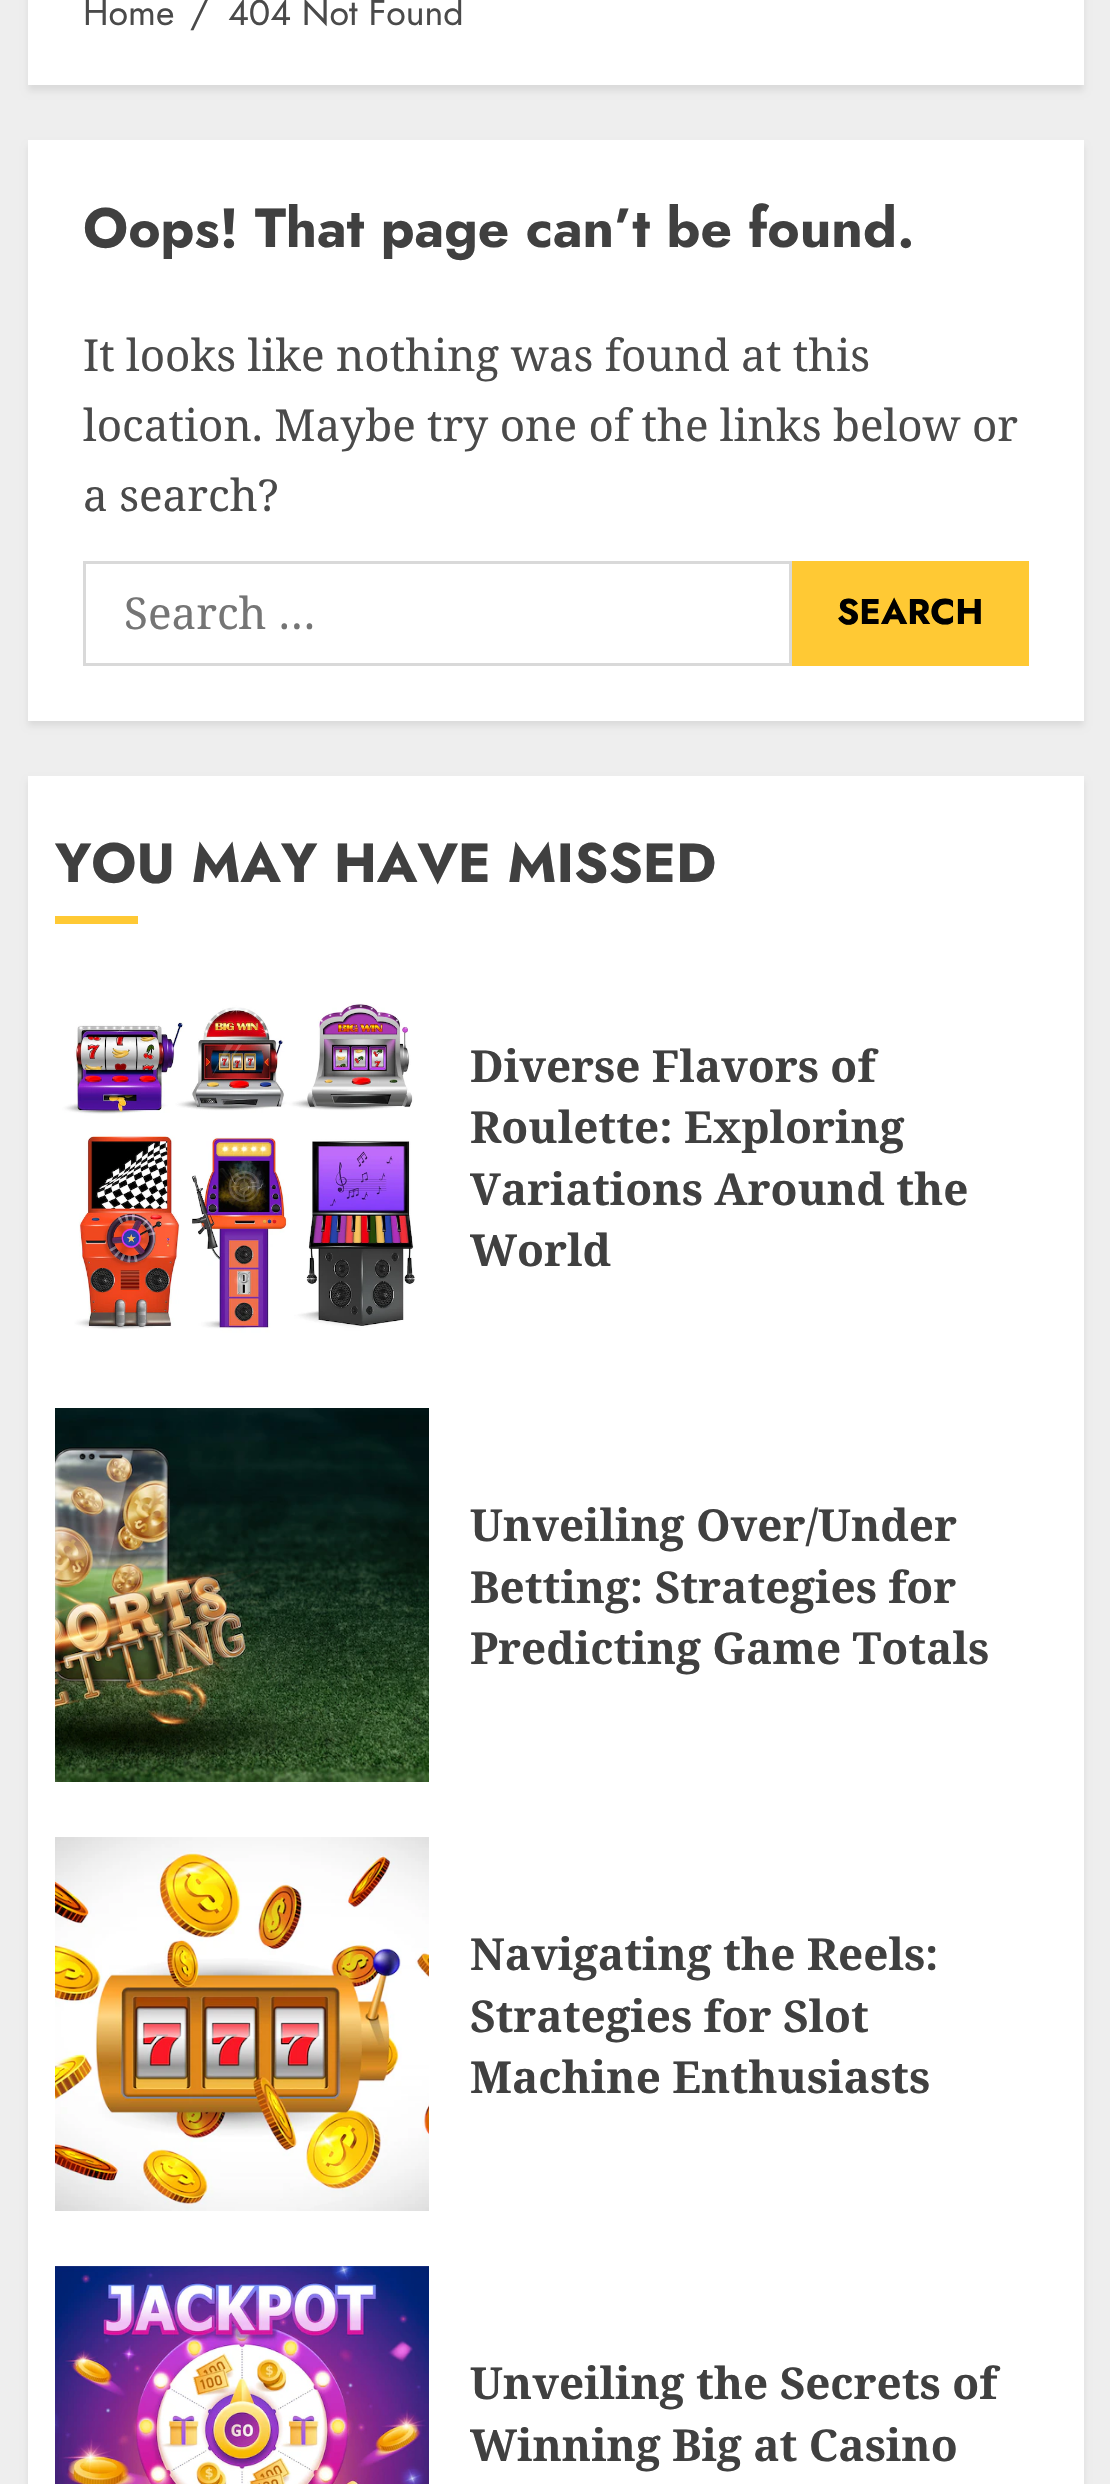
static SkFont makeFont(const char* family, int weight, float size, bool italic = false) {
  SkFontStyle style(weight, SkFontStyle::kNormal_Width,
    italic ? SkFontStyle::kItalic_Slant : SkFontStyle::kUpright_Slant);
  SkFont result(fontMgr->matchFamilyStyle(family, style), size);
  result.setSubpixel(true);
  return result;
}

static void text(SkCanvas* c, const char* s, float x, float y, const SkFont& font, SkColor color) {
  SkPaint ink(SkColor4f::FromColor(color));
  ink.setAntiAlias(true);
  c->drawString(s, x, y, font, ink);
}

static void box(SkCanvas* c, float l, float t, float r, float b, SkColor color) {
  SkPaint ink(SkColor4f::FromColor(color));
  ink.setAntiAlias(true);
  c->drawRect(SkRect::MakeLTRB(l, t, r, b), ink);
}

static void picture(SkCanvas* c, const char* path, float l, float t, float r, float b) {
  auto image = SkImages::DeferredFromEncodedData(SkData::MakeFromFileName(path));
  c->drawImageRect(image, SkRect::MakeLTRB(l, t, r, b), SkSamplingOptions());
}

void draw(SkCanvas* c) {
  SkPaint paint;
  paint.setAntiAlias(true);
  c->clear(0xffeeeeee);
  paint.setColor(0x14000000);
  paint.setMaskFilter(SkMaskFilter::MakeBlur(kNormal_SkBlurStyle, 3));
  c->drawRect(SkRect::MakeLTRB(28, -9, 1084, 91), paint);
  paint.setMaskFilter(nullptr);
  box(c, 28, 0, 1084, 85, 0xffffffff);
  SkFont face1 = makeFont("Jost", 400, 35.75f);
  text(c, "Home", 83, 25, face1, 0xff4a4a4a);
  text(c, "/", 190, 25, face1, 0xff4a4a4a);
  text(c, "404 Not Found", 228, 25, face1, 0xff4a4a4a);
  paint.setMaskFilter(SkMaskFilter::MakeBlur(kNormal_SkBlurStyle, 3));
  c->drawRect(SkRect::MakeLTRB(28, 146, 1084, 726), paint);
  paint.setMaskFilter(nullptr);
  box(c, 28, 140, 1084, 721, 0xffffffff);
  SkFont face2 = makeFont("Jost", 700, 55);
  text(c, "Oops! That page can’t be found.", 83, 247, face2, 0xff404040);
  SkFont face3 = makeFont("Noto Serif", 400, 44);
  text(c, "It looks like nothing was found at this", 83, 371, face3, 0xff4a4a4a);
  text(c, "location. Maybe try one of the links below or", 83, 441, face3, 0xff4a4a4a);
  text(c, "a search?", 83, 511, face3, 0xff4a4a4a);
  paint.setStyle(SkPaint::kStroke_Style);
  paint.setStrokeWidth(3);
  paint.setColor(0xffd9d9d9);
  c->drawRect(SkRect::MakeLTRB(84.5f, 562.5f, 790.5f, 664.5f), paint);
  text(c, "Search …", 124, 629, face3, 0xff757575);
  box(c, 792, 561, 1029, 666, 0xffffc934);
  SkFont face4 = makeFont("Jost", 700, 35.75f);
  text(c, "SEARCH", 837, 624, face4, 0xff000000);
  paint.setStyle(SkPaint::kFill_Style);
  paint.setColor(0x14000000);
  paint.setMaskFilter(SkMaskFilter::MakeBlur(kNormal_SkBlurStyle, 3));
  c->drawRect(SkRect::MakeLTRB(28, 781, 1084, 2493), paint);
  paint.setMaskFilter(nullptr);
  box(c, 28, 776, 1084, 2484, 0xffffffff);
  text(c, "YOU MAY HAVE MISSED", 55, 882, face2, 0xff404040);
  box(c, 55, 916, 138, 924, 0xffffc934);
  picture(c, "img_01.png", 55, 979, 429, 1353);
  SkFont face5 = makeFont("Noto Serif", 700, 44);
  text(c, "Diverse Flavors of", 470, 1082, face5, 0xff404040);
  text(c, "Roulette: Exploring", 470, 1143, face5, 0xff404040);
  text(c, "Variations Around the", 470, 1205, face5, 0xff404040);
  text(c, "World", 470, 1266, face5, 0xff404040);
  picture(c, "img_02.png", 55, 1408, 429, 1782);
  text(c, "Unveiling Over/Under", 470, 1541, face5, 0xff404040);
  text(c, "Betting: Strategies for", 470, 1603, face5, 0xff404040);
  text(c, "Predicting Game Totals", 470, 1664, face5, 0xff404040);
  picture(c, "img_03.png", 55, 1837, 429, 2211);
  text(c, "Navigating the Reels:", 470, 1970, face5, 0xff404040);
  text(c, "Strategies for Slot", 470, 2032, face5, 0xff404040);
  text(c, "Machine Enthusiasts", 470, 2093, face5, 0xff404040);
  picture(c, "img_04.png", 55, 2266, 429, 2484);
  text(c, "Unveiling the Secrets of", 470, 2399, face5, 0xff404040);
  text(c, "Winning Big at Casino", 470, 2461, face5, 0xff404040);
}
